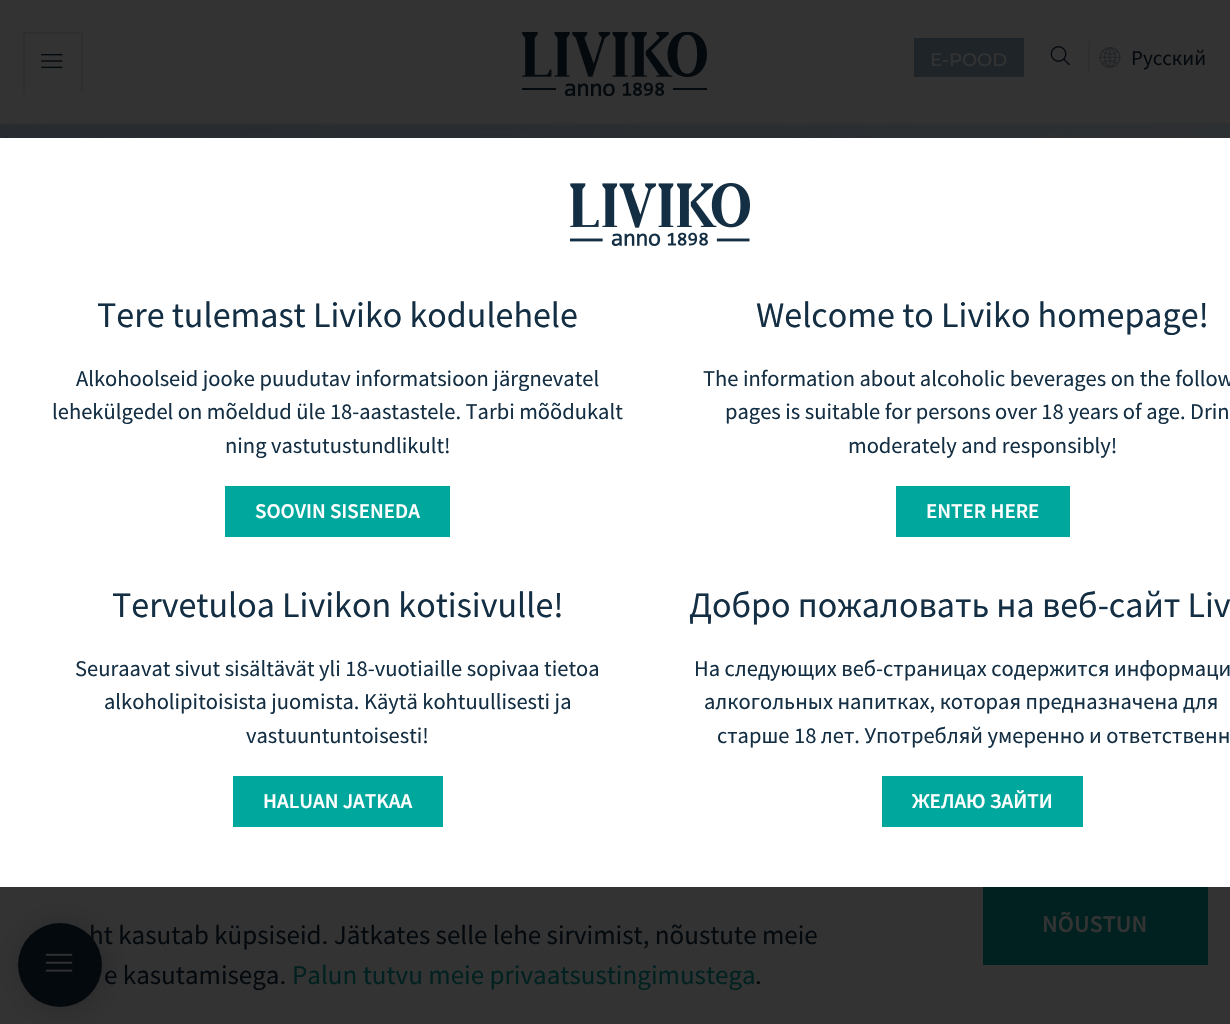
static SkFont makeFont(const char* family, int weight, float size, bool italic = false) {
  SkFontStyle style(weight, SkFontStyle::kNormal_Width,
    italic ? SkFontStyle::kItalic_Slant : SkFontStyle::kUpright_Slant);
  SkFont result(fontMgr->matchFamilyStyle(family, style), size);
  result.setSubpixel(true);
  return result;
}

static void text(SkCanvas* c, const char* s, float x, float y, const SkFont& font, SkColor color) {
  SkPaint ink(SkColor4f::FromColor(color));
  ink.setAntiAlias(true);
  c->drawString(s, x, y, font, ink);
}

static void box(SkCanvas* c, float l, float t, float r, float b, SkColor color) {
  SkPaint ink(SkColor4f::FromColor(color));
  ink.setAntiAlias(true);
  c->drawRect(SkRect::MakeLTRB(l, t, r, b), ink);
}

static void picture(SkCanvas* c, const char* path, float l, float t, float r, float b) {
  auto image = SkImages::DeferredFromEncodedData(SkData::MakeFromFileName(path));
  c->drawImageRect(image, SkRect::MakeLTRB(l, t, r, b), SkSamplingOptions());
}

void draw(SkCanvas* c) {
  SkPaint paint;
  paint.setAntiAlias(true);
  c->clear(0xff333333);
  box(c, 0, 123, 1230, 125, 0xff2f2f2f);
  box(c, 23, 32, 83, 34, 0xff2f2f2f);
  box(c, 81, 32, 83, 92, 0xff2f2f2f);
  box(c, 23, 32, 25, 92, 0xff2f2f2f);
  picture(c, "img_01.png", 41, 54, 63, 69);
  picture(c, "img_02.png", 522, 32, 707, 96);
  box(c, 914, 38, 1024, 77, 0xff1e2428);
  SkFont face1 = makeFont("Montserrat", 500, 18);
  text(c, "E-POOD", 930, 66, face1, 0xff333333);
  picture(c, "img_03.png", 1050, 46, 1070, 66);
  box(c, 1088, 41, 1090, 72, 0xff2f2f2f);
  picture(c, "img_04.png", 1099, 47, 1121, 68);
  SkFont face2 = makeFont("Source Sans Pro", 400, 21);
  text(c, "Русский", 1131, 65, face2, 0xff04090e);
  picture(c, "img_05.png", 0, 124, 1230, 138);
  paint.setColor(0x33000000);
  paint.setMaskFilter(SkMaskFilter::MakeBlur(kNormal_SkBlurStyle, 14));
  c->drawRoundRect(SkRect::MakeLTRB(20, 924, 104, 1008), 42, 42, paint);
  paint.setMaskFilter(nullptr);
  box(c, 0, 138, 1230, 887, 0xffffffff);
  picture(c, "img_06.png", 570, 183, 750, 246);
  SkFont face3 = makeFont("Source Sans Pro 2", 400, 36);
  text(c, "Tere tulemast Liviko kodulehele", 97, 327, face3, 0xff142f44);
  SkFont face4 = makeFont("Source Sans Pro", 400, 22.5f);
  text(c, "Alkohoolseid jooke puudutav informatsioon järgnevatel", 76, 386, face4, 0xff142f44);
  text(c, "lehekülgedel on mõeldud üle 18-aastastele. Tarbi mõõdukalt", 52, 419, face4, 0xff142f44);
  text(c, "ning vastutustundlikult!", 225, 453, face4, 0xff142f44);
  box(c, 225, 486, 450, 537, 0xff00a79c);
  SkFont face5 = makeFont("Source Sans Pro", 600, 21);
  text(c, "SOOVIN SISENEDA", 255, 518, face5, 0xffffffff);
  text(c, "Welcome to Liviko homepage!", 756, 327, face3, 0xff142f44);
  text(c, "The information about alcoholic beverages on the follow", 703, 386, face4, 0xff142f44);
  text(c, "pages is suitable for persons over 18 years of age. Drin", 725, 419, face4, 0xff142f44);
  text(c, "moderately and responsibly!", 848, 453, face4, 0xff142f44);
  box(c, 896, 486, 1070, 537, 0xff00a79c);
  text(c, "ENTER HERE", 926, 518, face5, 0xffffffff);
  text(c, "Tervetuloa Livikon kotisivulle!", 112, 617, face3, 0xff142f44);
  text(c, "Seuraavat sivut sisältävät yli 18-vuotiaille sopivaa tietoa", 75, 676, face4, 0xff142f44);
  text(c, "alkoholipitoisista juomista. Käytä kohtuullisesti ja", 104, 709, face4, 0xff142f44);
  text(c, "vastuuntuntoisesti!", 246, 743, face4, 0xff142f44);
  box(c, 233, 776, 443, 827, 0xff00a79c);
  text(c, "HALUAN JATKAA", 263, 808, face5, 0xffffffff);
  text(c, "Добро пожаловать на веб-сайт Liv", 689, 617, face3, 0xff142f44);
  text(c, "На следующих веб-страницах содержится информаци", 694, 676, face4, 0xff142f44);
  text(c, "алкогольных напитках, которая предназначенa для", 704, 709, face4, 0xff142f44);
  text(c, "старше 18 лет. Употребляй умеренно и ответственн", 717, 743, face4, 0xff142f44);
  box(c, 882, 776, 1083, 827, 0xff00a79c);
  text(c, "ЖЕЛАЮ ЗАЙТИ", 912, 808, face5, 0xffffffff);
  paint.setColor(0xff04090e);
  c->drawCircle(60, 965, 42, paint);
  picture(c, "img_07.png", 45, 953, 73, 972);
  SkFont face6 = makeFont("Source Sans Pro", 400, 27);
  text(c, "ht kasutab küpsiseid. Jätkates selle lehe sirvimist, nõustute meie", 89, 944, face6, 0xff04090e);
  text(c, "e kasutamisega.", 104, 984, face6, 0xff04090e);
  SkFont face7 = makeFont("Source Sans Pro 2", 400, 27);
  text(c, "Palun tutvu meie privaatsustingimustega", 292, 984, face7, 0xff00211f);
  text(c, ".", 755, 984, face6, 0xff04090e);
  box(c, 983, 887, 1208, 965, 0xff00211f);
  SkFont face8 = makeFont("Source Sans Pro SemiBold", 600, 24);
  text(c, "NÕUSTUN", 1042, 932, face8, 0xff333333);
}
